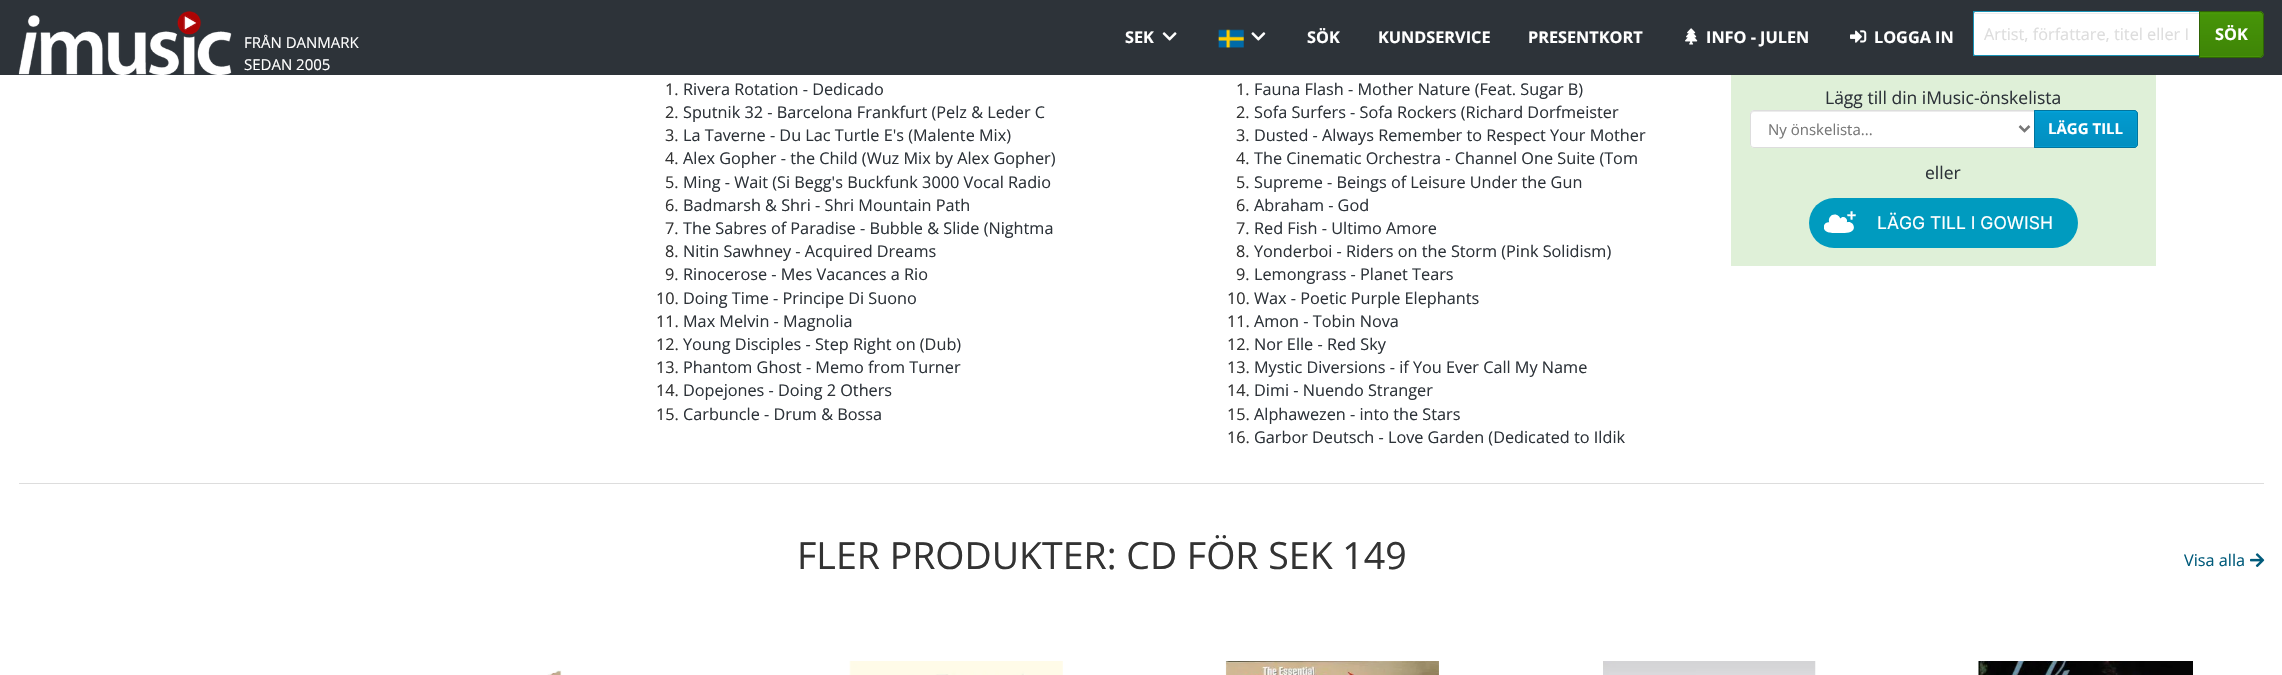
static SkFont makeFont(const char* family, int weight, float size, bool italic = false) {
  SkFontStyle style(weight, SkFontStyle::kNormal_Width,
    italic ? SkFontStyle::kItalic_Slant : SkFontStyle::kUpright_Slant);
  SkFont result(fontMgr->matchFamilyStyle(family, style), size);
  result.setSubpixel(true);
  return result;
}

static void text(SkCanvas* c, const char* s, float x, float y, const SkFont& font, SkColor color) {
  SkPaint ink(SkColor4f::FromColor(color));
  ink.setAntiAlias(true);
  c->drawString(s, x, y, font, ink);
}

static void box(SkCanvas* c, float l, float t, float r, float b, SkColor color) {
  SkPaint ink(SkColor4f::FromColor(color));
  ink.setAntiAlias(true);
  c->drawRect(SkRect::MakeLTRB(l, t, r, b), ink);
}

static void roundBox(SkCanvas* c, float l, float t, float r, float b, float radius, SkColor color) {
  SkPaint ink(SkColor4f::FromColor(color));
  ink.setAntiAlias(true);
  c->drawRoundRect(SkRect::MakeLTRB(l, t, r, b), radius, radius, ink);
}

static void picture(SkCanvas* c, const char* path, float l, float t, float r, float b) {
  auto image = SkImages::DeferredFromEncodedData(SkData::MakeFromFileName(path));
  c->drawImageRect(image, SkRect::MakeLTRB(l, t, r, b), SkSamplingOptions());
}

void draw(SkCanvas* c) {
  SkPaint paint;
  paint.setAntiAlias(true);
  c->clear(0xffffffff);
  box(c, 0, 0, 2282, 75, 0xff2d3339);
  picture(c, "img_01.png", 18, 11, 232, 75);
  SkFont face1 = makeFont("Open Sans", 400, 15);
  text(c, "FRÅN DANMARK", 244, 48, face1, 0xffffffff);
  text(c, "SEDAN 2005", 244, 70, face1, 0xffffffff);
  SkFont face2 = makeFont("Open Sans", 700, 16.25f);
  text(c, "SEK", 1125, 43, face2, 0xffffffff);
  picture(c, "img_02.png", 1162, 32, 1177, 41);
  picture(c, "img_03.png", 1218, 29, 1244, 48);
  picture(c, "img_04.png", 1251, 32, 1266, 41);
  text(c, "SÖK", 1307, 43, face2, 0xffffffff);
  text(c, "KUNDSERVICE", 1378, 43, face2, 0xffffffff);
  text(c, "PRESENTKORT", 1528, 43, face2, 0xffffffff);
  picture(c, "img_05.png", 1685, 28, 1698, 45);
  text(c, "INFO - JULEN", 1706, 43, face2, 0xffffffff);
  picture(c, "img_06.png", 1850, 30, 1867, 43);
  text(c, "LOGGA IN", 1874, 43, face2, 0xffffffff);
  paint.setColor(0xffffffff);
  c->drawPath(SkPathBuilder().moveTo(1978, 11).lineTo(2200, 11).lineTo(2200, 56).lineTo(1978, 56).cubicTo(1975, 56, 1973, 54, 1973, 51).lineTo(1973, 16).cubicTo(1973, 13, 1975, 11, 1978, 11).close().detach(), paint);
  box(c, 1974, 13, 2199, 14, 0xffececec);
  paint.setStyle(SkPaint::kStroke_Style);
  paint.setStrokeWidth(1);
  paint.setColor(0xff1993b6);
  c->drawRect(SkRect::MakeLTRB(1973.5f, 11.5f, 2199.5f, 55.5f), paint);
  SkFont face3 = makeFont("Open Sans", 400, 16.25f);
  text(c, "Artist, författare, titel eller I", 1984, 40, face3, 0xffdddddd);
  paint.setStyle(SkPaint::kFill_Style);
  paint.setColor(0xff469408);
  c->drawPath(SkPathBuilder().moveTo(2199, 11).lineTo(2259, 11).cubicTo(2262, 11, 2264, 13, 2264, 16).lineTo(2264, 53).cubicTo(2264, 56, 2262, 58, 2259, 58).lineTo(2199, 58).close().detach(), paint);
  {
    const SkColor colors[] = {0xff4da309, 0xff469408, 0xff3f8507};
    const float stops[] = {0, 0.06f, 1};
    const SkPoint ends[] = {{2231, 12}, {2231, 56}};
    paint.setShader(SkGradientShader::MakeLinear(ends, colors, stops, 3, SkTileMode::kClamp));
    paint.setAlpha(255);
  }
  c->drawRect(SkRect::MakeLTRB(2200, 13, 2263, 56), paint);
  paint.setStyle(SkPaint::kStroke_Style);
  paint.setShader(nullptr);
  paint.setColor(0xff2f6405);
  c->drawPath(SkPathBuilder().moveTo(2199.5f, 11.5f).lineTo(2259, 11.5f).cubicTo(2261.5f, 11.5f, 2263.5f, 13.5f, 2263.5f, 16).lineTo(2263.5f, 53).cubicTo(2263.5f, 55.5f, 2261.5f, 57.5f, 2259, 57.5f).lineTo(2199.5f, 57.5f).close().detach(), paint);
  text(c, "SÖK", 2215, 40, face2, 0xffffffff);
  text(c, "1.", 665, 95, face3, 0xff333333);
  text(c, "Rivera Rotation - Dedicado", 683, 95, face3, 0xff2d3339);
  text(c, "2.", 665, 118, face3, 0xff333333);
  text(c, "Sputnik 32 - Barcelona Frankfurt (Pelz & Leder C", 683, 118, face3, 0xff2d3339);
  text(c, "3.", 665, 141, face3, 0xff333333);
  text(c, "La Taverne - Du Lac Turtle E's (Malente Mix)", 683, 141, face3, 0xff2d3339);
  text(c, "4.", 665, 164, face3, 0xff333333);
  text(c, "Alex Gopher - the Child (Wuz Mix by Alex Gopher)", 683, 164, face3, 0xff2d3339);
  text(c, "5.", 665, 188, face3, 0xff333333);
  text(c, "Ming - Wait (Si Begg's Buckfunk 3000 Vocal Radio", 683, 188, face3, 0xff2d3339);
  text(c, "6.", 665, 211, face3, 0xff333333);
  text(c, "Badmarsh & Shri - Shri Mountain Path", 683, 211, face3, 0xff2d3339);
  text(c, "7.", 665, 234, face3, 0xff333333);
  text(c, "The Sabres of Paradise - Bubble & Slide (Nightma", 683, 234, face3, 0xff2d3339);
  text(c, "8.", 665, 257, face3, 0xff333333);
  text(c, "Nitin Sawhney - Acquired Dreams", 683, 257, face3, 0xff2d3339);
  text(c, "9.", 665, 280, face3, 0xff333333);
  text(c, "Rinocerose - Mes Vacances a Rio", 683, 280, face3, 0xff2d3339);
  text(c, "10.", 656, 304, face3, 0xff333333);
  text(c, "Doing Time - Principe Di Suono", 683, 304, face3, 0xff2d3339);
  text(c, "11.", 656, 327, face3, 0xff333333);
  text(c, "Max Melvin - Magnolia", 683, 327, face3, 0xff2d3339);
  text(c, "12.", 656, 350, face3, 0xff333333);
  text(c, "Young Disciples - Step Right on (Dub)", 683, 350, face3, 0xff2d3339);
  text(c, "13.", 656, 373, face3, 0xff333333);
  text(c, "Phantom Ghost - Memo from Turner", 683, 373, face3, 0xff2d3339);
  text(c, "14.", 656, 396, face3, 0xff333333);
  text(c, "Dopejones - Doing 2 Others", 683, 396, face3, 0xff2d3339);
  text(c, "15.", 656, 420, face3, 0xff333333);
  text(c, "Carbuncle - Drum & Bossa", 683, 420, face3, 0xff2d3339);
  text(c, "1.", 1236, 95, face3, 0xff333333);
  text(c, "Fauna Flash - Mother Nature (Feat. Sugar B)", 1254, 95, face3, 0xff2d3339);
  text(c, "2.", 1236, 118, face3, 0xff333333);
  text(c, "Sofa Surfers - Sofa Rockers (Richard Dorfmeister", 1254, 118, face3, 0xff2d3339);
  text(c, "3.", 1236, 141, face3, 0xff333333);
  text(c, "Dusted - Always Remember to Respect Your Mother", 1254, 141, face3, 0xff2d3339);
  text(c, "4.", 1236, 164, face3, 0xff333333);
  text(c, "The Cinematic Orchestra - Channel One Suite (Tom", 1254, 164, face3, 0xff2d3339);
  text(c, "5.", 1236, 188, face3, 0xff333333);
  text(c, "Supreme - Beings of Leisure Under the Gun", 1254, 188, face3, 0xff2d3339);
  text(c, "6.", 1236, 211, face3, 0xff333333);
  text(c, "Abraham - God", 1254, 211, face3, 0xff2d3339);
  text(c, "7.", 1236, 234, face3, 0xff333333);
  text(c, "Red Fish - Ultimo Amore", 1254, 234, face3, 0xff2d3339);
  text(c, "8.", 1236, 257, face3, 0xff333333);
  text(c, "Yonderboi - Riders on the Storm (Pink Solidism)", 1254, 257, face3, 0xff2d3339);
  text(c, "9.", 1236, 280, face3, 0xff333333);
  text(c, "Lemongrass - Planet Tears", 1254, 280, face3, 0xff2d3339);
  text(c, "10.", 1227, 304, face3, 0xff333333);
  text(c, "Wax - Poetic Purple Elephants", 1254, 304, face3, 0xff2d3339);
  text(c, "11.", 1227, 327, face3, 0xff333333);
  text(c, "Amon - Tobin Nova", 1254, 327, face3, 0xff2d3339);
  text(c, "12.", 1227, 350, face3, 0xff333333);
  text(c, "Nor Elle - Red Sky", 1254, 350, face3, 0xff2d3339);
  text(c, "13.", 1227, 373, face3, 0xff333333);
  text(c, "Mystic Diversions - if You Ever Call My Name", 1254, 373, face3, 0xff2d3339);
  text(c, "14.", 1227, 396, face3, 0xff333333);
  text(c, "Dimi - Nuendo Stranger", 1254, 396, face3, 0xff2d3339);
  text(c, "15.", 1227, 420, face3, 0xff333333);
  text(c, "Alphawezen - into the Stars", 1254, 420, face3, 0xff2d3339);
  text(c, "16.", 1227, 443, face3, 0xff333333);
  text(c, "Garbor Deutsch - Love Garden (Dedicated to Ildik", 1254, 443, face3, 0xff2d3339);
  box(c, 1731, 75, 2156, 266, 0xffdff0d8);
  SkFont face4 = makeFont("Open Sans", 400, 17.5f);
  text(c, "Lägg till din iMusic-önskelista", 1825, 104, face4, 0xff2d3339);
  paint.setStyle(SkPaint::kFill_Style);
  paint.setColor(0xffffffff);
  c->drawPath(SkPathBuilder().moveTo(1754, 110).lineTo(2035, 110).lineTo(2035, 148).lineTo(1754, 148).cubicTo(1752, 148, 1750, 146, 1750, 144).lineTo(1750, 114).cubicTo(1750, 112, 1752, 110, 1754, 110).close().detach(), paint);
  paint.setColor(0xffececec);
  c->drawPath(SkPathBuilder().moveTo(1754, 112).lineTo(2034, 112).lineTo(2034, 111).lineTo(1754, 111).cubicTo(1751, 111, 1751, 113, 1751, 115).cubicTo(1751, 114, 1752, 112, 1754, 112).close().detach(), paint);
  paint.setStyle(SkPaint::kStroke_Style);
  paint.setColor(0xffdddddd);
  c->drawPath(SkPathBuilder().moveTo(1754, 110.5f).lineTo(2034.5f, 110.5f).lineTo(2034.5f, 147.5f).lineTo(1754, 147.5f).cubicTo(1752, 147.5f, 1750.5f, 146, 1750.5f, 144).lineTo(1750.5f, 114).cubicTo(1750.5f, 112, 1752, 110.5f, 1754, 110.5f).close().detach(), paint);
  paint.setStrokeWidth(2.5f);
  paint.setColor(0xff777777);
  c->drawPath(SkPathBuilder().moveTo(2019.5f, 126).lineTo(2024.5f, 131).lineTo(2029.5f, 126).detach(), paint);
  text(c, "Ny önskelista...", 1768, 135, face1, 0xff777777);
  paint.setStyle(SkPaint::kFill_Style);
  paint.setColor(0xff029acf);
  c->drawPath(SkPathBuilder().moveTo(2034, 110).lineTo(2134, 110).cubicTo(2136, 110, 2138, 112, 2138, 114).lineTo(2138, 144).cubicTo(2138, 146, 2136, 148, 2134, 148).lineTo(2034, 148).close().detach(), paint);
  {
    const SkColor colors[] = {0xff02a5de, 0xff029acf, 0xff028fc0};
    const float stops[] = {0, 0.06f, 1};
    const SkPoint ends[] = {{2086, 111}, {2086, 146}};
    paint.setShader(SkGradientShader::MakeLinear(ends, colors, stops, 3, SkTileMode::kClamp));
    paint.setAlpha(255);
  }
  c->drawRect(SkRect::MakeLTRB(2035, 111, 2136, 146), paint);
  paint.setStyle(SkPaint::kStroke_Style);
  paint.setStrokeWidth(1);
  paint.setShader(nullptr);
  paint.setColor(0xff02749c);
  c->drawPath(SkPathBuilder().moveTo(2034.5f, 110.5f).lineTo(2134, 110.5f).cubicTo(2136, 110.5f, 2137.5f, 112, 2137.5f, 114).lineTo(2137.5f, 144).cubicTo(2137.5f, 146, 2136, 147.5f, 2134, 147.5f).lineTo(2034.5f, 147.5f).close().detach(), paint);
  SkFont face5 = makeFont("Open Sans", 700, 15);
  text(c, "LÄGG TILL", 2048, 134, face5, 0xffffffff);
  text(c, "eller", 1925, 179, face4, 0xff2d3339);
  roundBox(c, 1809, 198, 2078, 248, 25, 0xff009bbf);
  picture(c, "img_07.png", 1824, 211, 1856, 233);
  SkFont face6 = makeFont("Inter", 400, 17.5f);
  text(c, "LÄGG TILL I GOWISH", 1877, 229, face6, 0xffffffff);
  box(c, 19, 483, 2264, 484, 0xffdddddd);
  SkFont face7 = makeFont("Open Sans", 400, 37.5f);
  text(c, "FLER PRODUKTER: CD FÖR SEK 149", 797, 569, face7, 0xff333333);
  text(c, "Visa alla", 2184, 566, face3, 0xff015b7b);
  picture(c, "img_08.png", 2250, 553, 2265, 567);
  picture(c, "img_09.png", 561, 670, 562, 675);
  picture(c, "img_10.png", 547, 670, 561, 675);
  picture(c, "img_11.png", 849, 661, 1063, 675);
  picture(c, "img_12.png", 937, 674, 947, 675);
  picture(c, "img_13.png", 1226, 661, 1439, 675);
  picture(c, "img_14.png", 1225, 661, 1439, 675);
  picture(c, "img_15.png", 1603, 661, 1816, 675);
  picture(c, "img_16.png", 1814, 661, 1815, 675);
  picture(c, "img_17.png", 1978, 661, 2193, 675);
  picture(c, "img_18.png", 1978, 661, 2117, 675);
}
